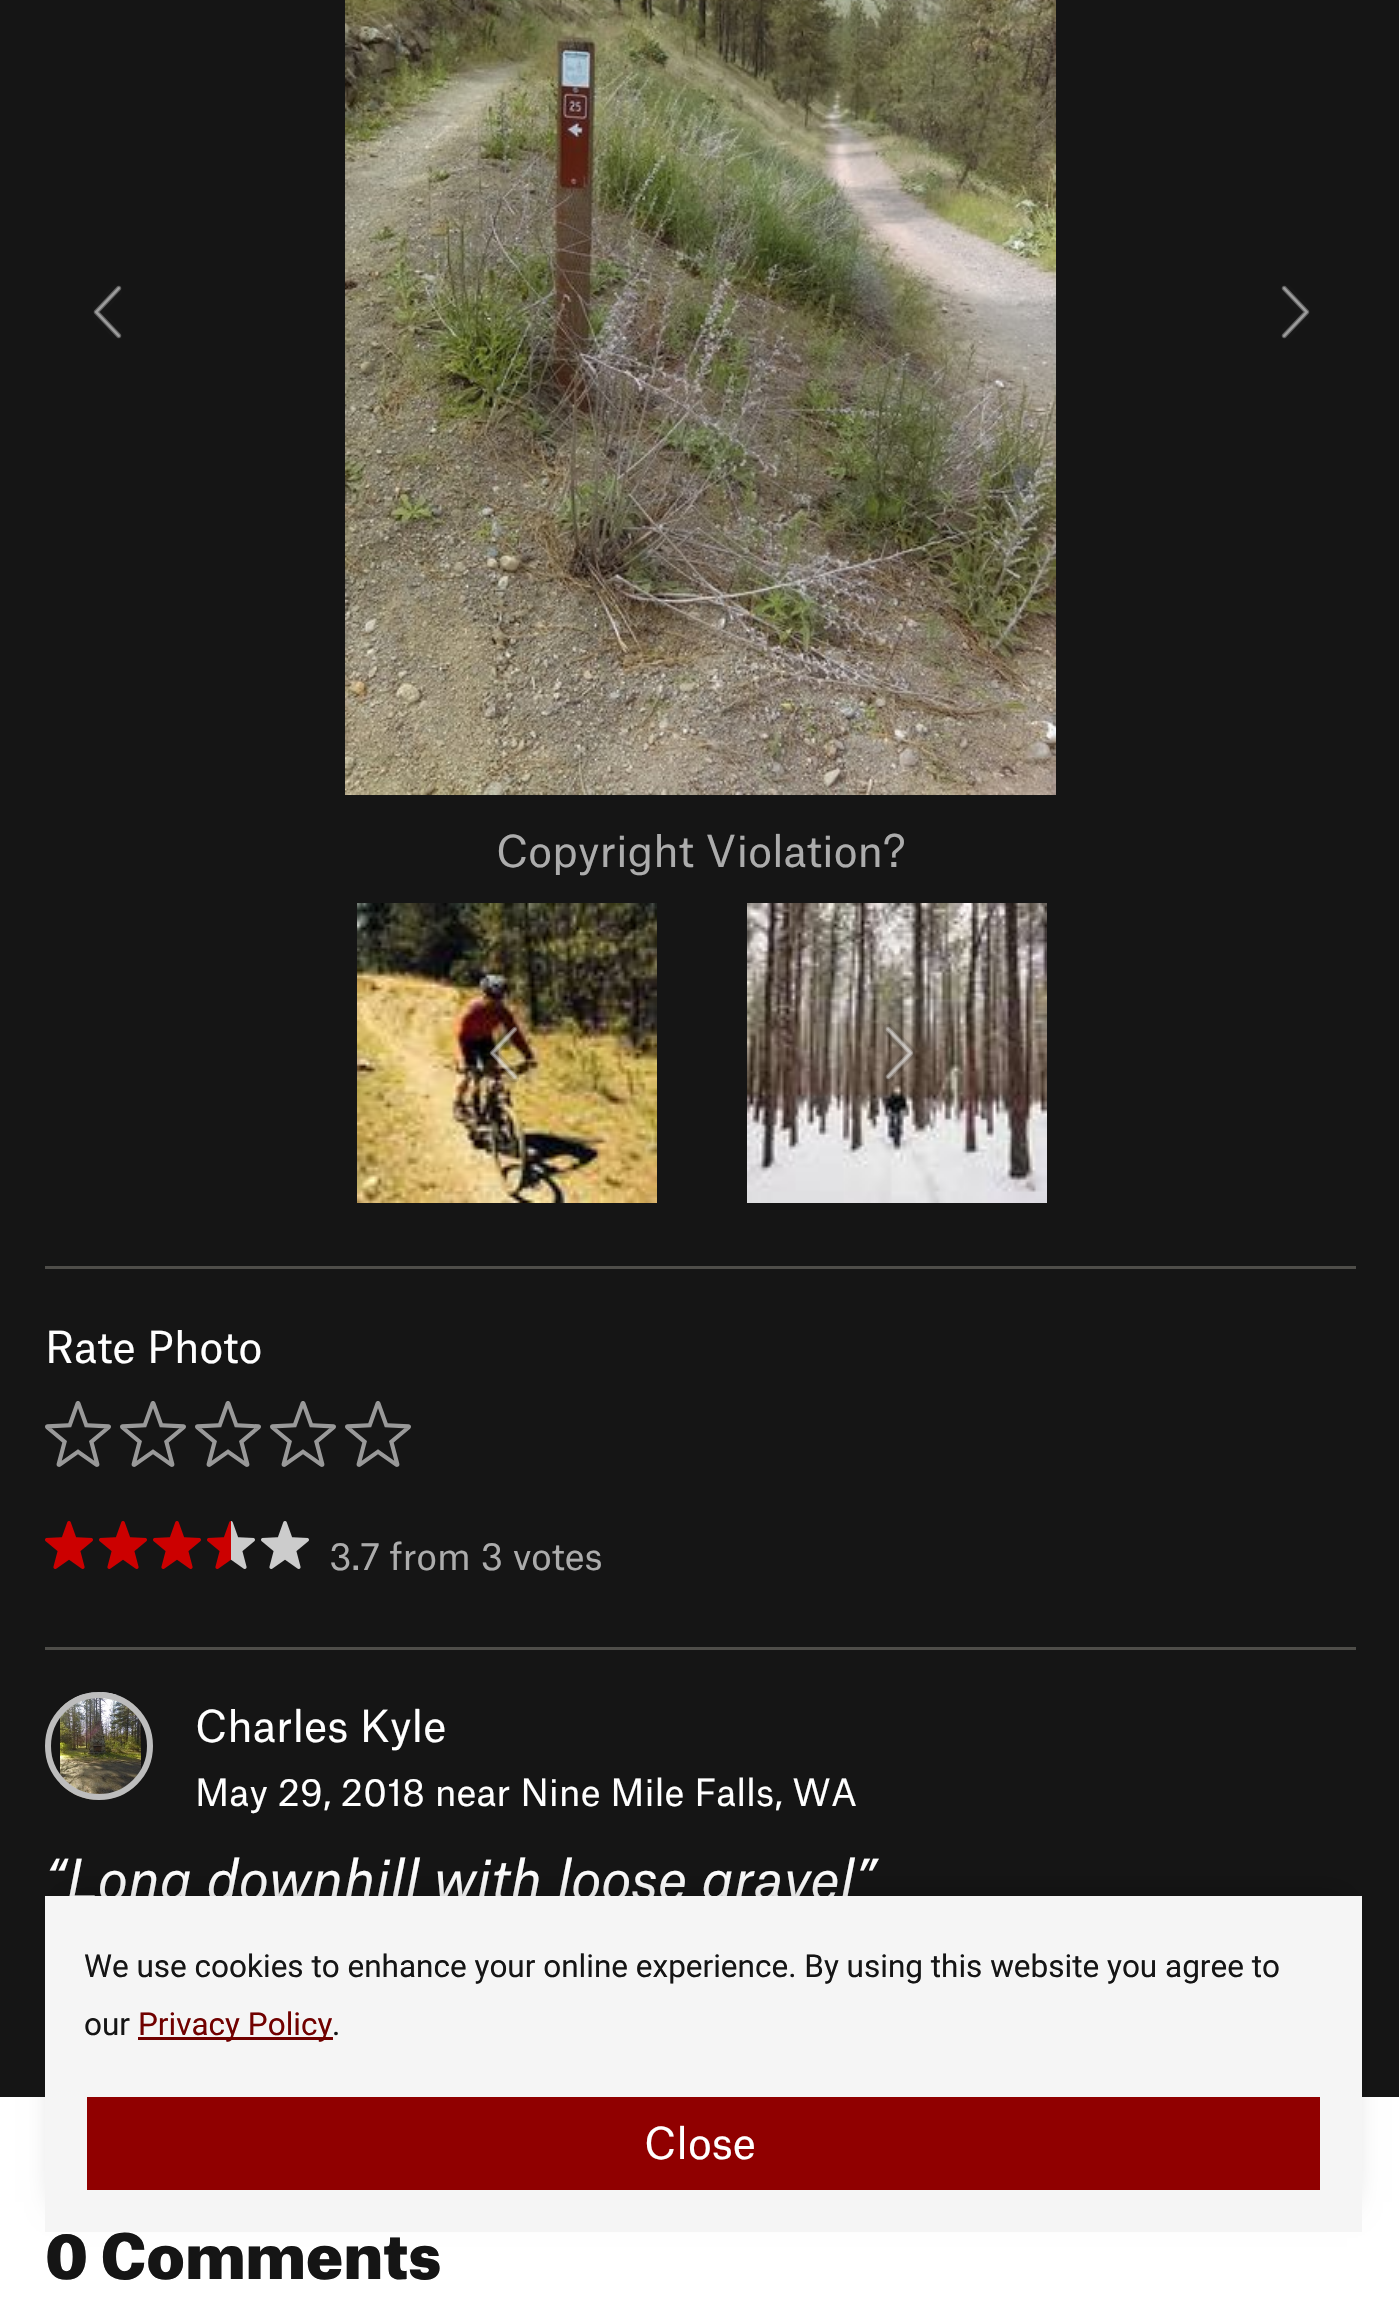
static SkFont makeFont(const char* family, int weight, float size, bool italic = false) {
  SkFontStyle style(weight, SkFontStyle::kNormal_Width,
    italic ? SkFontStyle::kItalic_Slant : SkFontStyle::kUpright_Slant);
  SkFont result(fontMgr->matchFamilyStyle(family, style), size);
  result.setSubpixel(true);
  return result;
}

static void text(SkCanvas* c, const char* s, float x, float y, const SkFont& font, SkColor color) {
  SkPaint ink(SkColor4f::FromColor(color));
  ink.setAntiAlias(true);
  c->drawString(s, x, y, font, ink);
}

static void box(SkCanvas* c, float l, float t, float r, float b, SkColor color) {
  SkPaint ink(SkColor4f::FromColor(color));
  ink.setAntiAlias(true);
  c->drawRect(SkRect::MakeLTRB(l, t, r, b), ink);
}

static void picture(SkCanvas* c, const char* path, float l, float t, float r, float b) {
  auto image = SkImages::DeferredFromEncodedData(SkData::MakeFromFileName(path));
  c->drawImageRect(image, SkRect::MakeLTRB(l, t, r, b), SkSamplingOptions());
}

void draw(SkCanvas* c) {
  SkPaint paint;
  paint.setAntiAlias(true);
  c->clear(0xffffffff);
  box(c, 0, 0, 1399, 2097, 0xff151515);
  picture(c, "img_01.png", 93, 285, 122, 339);
  picture(c, "img_02.png", 345, 0, 1056, 795);
  picture(c, "img_03.png", 1281, 285, 1310, 339);
  SkFont face1 = makeFont("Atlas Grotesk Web", 400, 42);
  text(c, "Copyright Violation?", 496, 867, face1, 0xffacacac);
  picture(c, "img_04.png", 357, 903, 657, 1203);
  picture(c, "img_05.png", 487, 1024, 519, 1083);
  picture(c, "img_06.png", 747, 903, 1047, 1203);
  picture(c, "img_07.png", 882, 1024, 915, 1082);
  box(c, 45, 1266, 1356, 1269, 0xff4e4d49);
  text(c, "Rate Photo", 45, 1363, face1, 0xffffffff);
  picture(c, "img_08.png", 45, 1401, 111, 1467);
  picture(c, "img_08.png", 120, 1401, 186, 1467);
  picture(c, "img_09.png", 195, 1401, 261, 1467);
  picture(c, "img_08.png", 270, 1401, 336, 1467);
  picture(c, "img_08.png", 345, 1401, 411, 1467);
  picture(c, "img_10.png", 45, 1521, 93, 1569);
  picture(c, "img_10.png", 99, 1521, 147, 1569);
  picture(c, "img_10.png", 153, 1521, 201, 1569);
  picture(c, "img_11.png", 207, 1521, 255, 1569);
  picture(c, "img_12.png", 261, 1521, 309, 1569);
  SkFont face2 = makeFont("Atlas Grotesk Web", 400, 36);
  text(c, "3.7 from 3 votes", 329, 1570, face2, 0xffacacac);
  box(c, 45, 1647, 1356, 1650, 0xff4e4d49);
  picture(c, "img_13.png", 60, 1692, 141, 1800);
  paint.setStyle(SkPaint::kStroke_Style);
  paint.setStrokeWidth(6);
  paint.setColor(0xffbdbdbd);
  c->drawCircle(99, 1746, 51, paint);
  text(c, "Charles Kyle", 195, 1742, face1, 0xffffffff);
  text(c, "May 29, 2018 near Nine Mile Falls, WA", 195, 1806, face2, 0xffffffff);
  SkFont face3 = makeFont("Atlas Grotesk Web", 400, 54, true);
  text(c, "“Long downhill with loose gravel”", 45, 1900, face3, 0xffffffff);
  paint.setStyle(SkPaint::kFill_Style);
  paint.setColor(0x40000000);
  paint.setMaskFilter(SkMaskFilter::MakeBlur(kNormal_SkBlurStyle, 15));
  c->drawRect(SkRect::MakeLTRB(60, 1896, 1347, 2202), paint);
  paint.setMaskFilter(nullptr);
  box(c, 45, 1896, 1362, 2232, 0xfff5f5f5);
  SkFont face4 = makeFont("Roboto", 400, 31.5f);
  text(c, "We use cookies to enhance your online experience. By using this website you agree to", 84, 1977, face4, 0xff151515);
  text(c, "our", 84, 2035, face4, 0xff151515);
  box(c, 138, 2037, 333, 2040, 0xff710100);
  text(c, "Privacy Policy", 138, 2035, face4, 0xff710100);
  text(c, ".", 332, 2035, face4, 0xff151515);
  box(c, 87, 2097, 1320, 2190, 0xff900000);
  text(c, "Close", 644, 2159, face1, 0xffffffff);
  SkFont face5 = makeFont("Atlas Grotesk Web", 900, 60);
  text(c, "0 Comments", 45, 2279, face5, 0xff151515);
}
